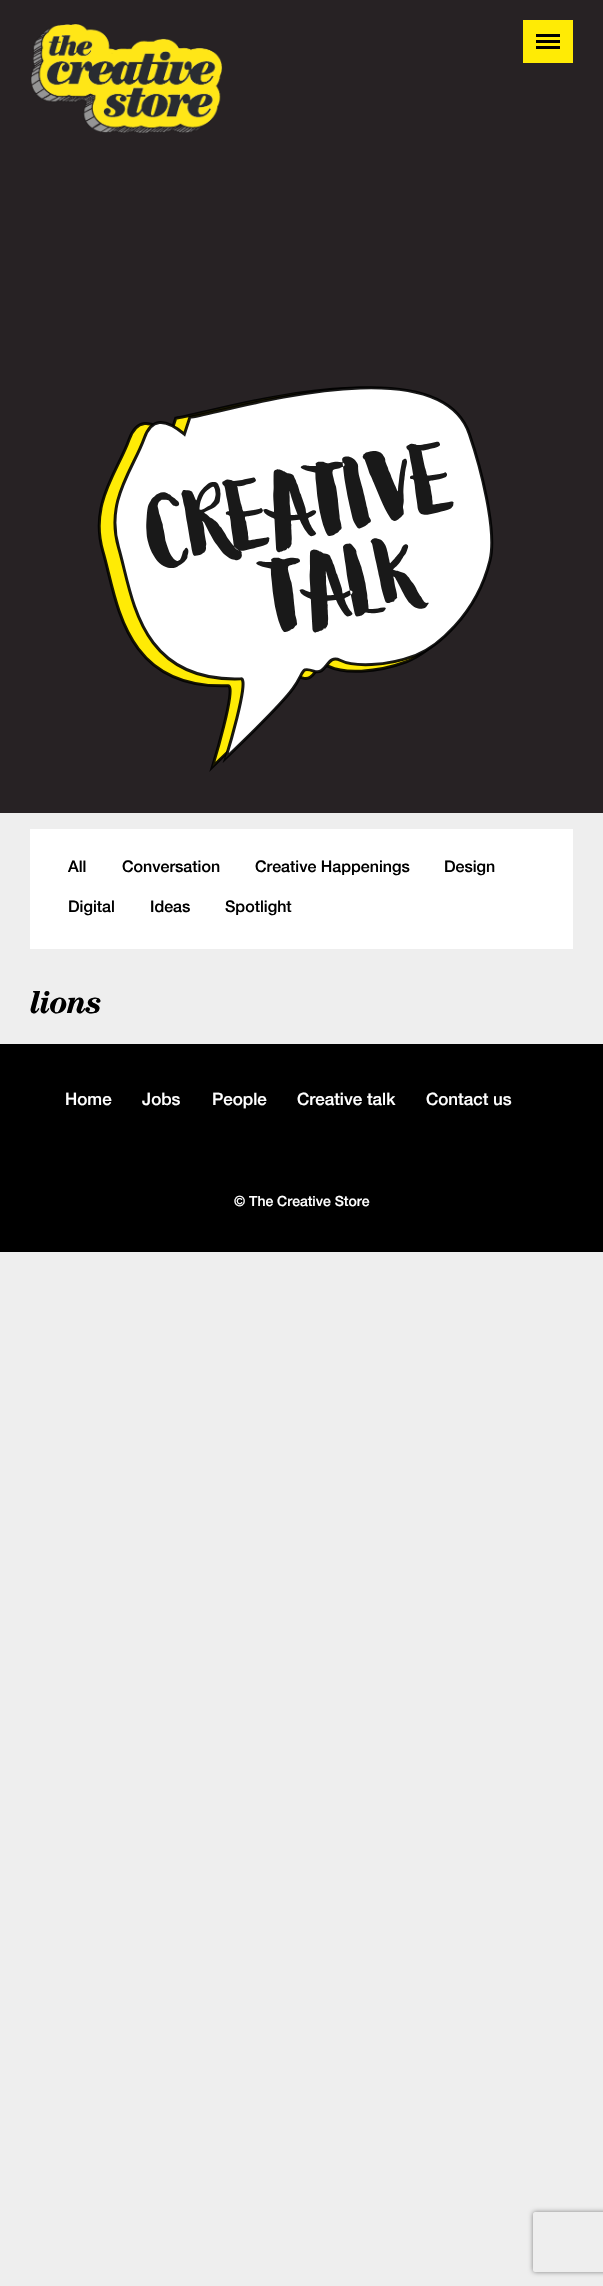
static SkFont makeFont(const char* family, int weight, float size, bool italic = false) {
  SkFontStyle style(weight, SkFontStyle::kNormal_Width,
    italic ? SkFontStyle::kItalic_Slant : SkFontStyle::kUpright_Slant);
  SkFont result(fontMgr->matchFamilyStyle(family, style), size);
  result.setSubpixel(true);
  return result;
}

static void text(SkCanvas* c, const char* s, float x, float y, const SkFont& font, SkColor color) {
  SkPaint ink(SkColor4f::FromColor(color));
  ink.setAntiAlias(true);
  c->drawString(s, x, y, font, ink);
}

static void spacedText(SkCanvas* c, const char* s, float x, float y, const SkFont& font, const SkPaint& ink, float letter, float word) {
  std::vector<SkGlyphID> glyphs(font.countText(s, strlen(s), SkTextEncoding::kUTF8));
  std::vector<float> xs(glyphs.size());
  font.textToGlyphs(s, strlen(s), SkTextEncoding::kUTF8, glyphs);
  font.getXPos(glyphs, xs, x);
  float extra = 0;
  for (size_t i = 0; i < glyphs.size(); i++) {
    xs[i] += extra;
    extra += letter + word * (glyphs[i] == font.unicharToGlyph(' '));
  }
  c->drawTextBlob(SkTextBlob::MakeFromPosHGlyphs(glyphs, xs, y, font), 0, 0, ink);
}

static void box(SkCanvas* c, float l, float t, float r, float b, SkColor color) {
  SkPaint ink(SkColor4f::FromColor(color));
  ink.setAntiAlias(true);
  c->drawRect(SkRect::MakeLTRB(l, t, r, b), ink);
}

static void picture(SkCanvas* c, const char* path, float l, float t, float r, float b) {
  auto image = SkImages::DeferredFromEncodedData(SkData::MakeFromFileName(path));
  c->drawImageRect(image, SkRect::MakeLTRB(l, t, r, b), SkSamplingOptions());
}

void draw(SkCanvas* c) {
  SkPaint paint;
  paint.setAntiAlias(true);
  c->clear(0xffeeeeee);
  box(c, 0, 0, 603, 813, 0xff272224);
  picture(c, "img_01.png", 30, 23, 223, 133);
  box(c, 523, 20, 573, 63, 0xffffeb05);
  box(c, 536, 40, 560, 43, 0xff000000);
  box(c, 536, 34, 560, 37, 0xff000000);
  box(c, 536, 46, 560, 49, 0xff000000);
  picture(c, "img_02.png", 97, 386, 494, 772);
  box(c, 30, 829, 573, 949, 0xffffffff);
  SkFont face1 = makeFont("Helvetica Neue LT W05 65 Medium", 500, 16);
  text(c, "All", 68, 872, face1, 0xff000000);
  text(c, "Conversation", 122, 872, face1, 0xff000000);
  text(c, "Creative Happenings", 255, 872, face1, 0xff000000);
  text(c, "Design", 444, 872, face1, 0xff000000);
  text(c, "Digital", 68, 912, face1, 0xff000000);
  text(c, "Ideas", 150, 912, face1, 0xff000000);
  text(c, "Spotlight", 225, 912, face1, 0xff000000);
  SkFont face2 = makeFont("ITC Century", 700, 32, true);
  paint.setColor(0xff000000);
  spacedText(c, "lions", 30, 1013, face2, paint, -1, 0);
  box(c, 0, 1044, 603, 1252, 0xff000000);
  SkFont face3 = makeFont("Helvetica Neue LT W05 65 Medium", 500, 17);
  text(c, "Home", 65, 1105, face3, 0xffffffff);
  text(c, "Jobs", 142, 1105, face3, 0xffffffff);
  text(c, "People", 212, 1105, face3, 0xffffffff);
  text(c, "Creative talk", 297, 1105, face3, 0xffffffff);
  text(c, "Contact us", 426, 1105, face3, 0xffffffff);
  SkFont face4 = makeFont("Helvetica Neue LT W05 65 Medium", 500, 14);
  text(c, "© The Creative Store", 234, 1206, face4, 0xffffffff);
  c->save();
  c->clipPath(SkPathBuilder(SkPathFillType::kEvenOdd).moveTo(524, 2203).lineTo(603, 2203).lineTo(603, 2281).lineTo(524, 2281).close().moveTo(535, 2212).lineTo(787, 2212).cubicTo(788, 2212, 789, 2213, 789, 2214).lineTo(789, 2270).cubicTo(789, 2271, 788, 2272, 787, 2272).lineTo(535, 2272).cubicTo(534, 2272, 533, 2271, 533, 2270).lineTo(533, 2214).cubicTo(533, 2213, 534, 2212, 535, 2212).close().detach(), true);
  paint.setColor(0xff808080);
  paint.setMaskFilter(SkMaskFilter::MakeBlur(kNormal_SkBlurStyle, 2.5f));
  c->drawRoundRect(SkRect::MakeLTRB(533, 2212, 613, 2272), 2, 2, paint);
  paint.setMaskFilter(nullptr);
  c->restore();
}
